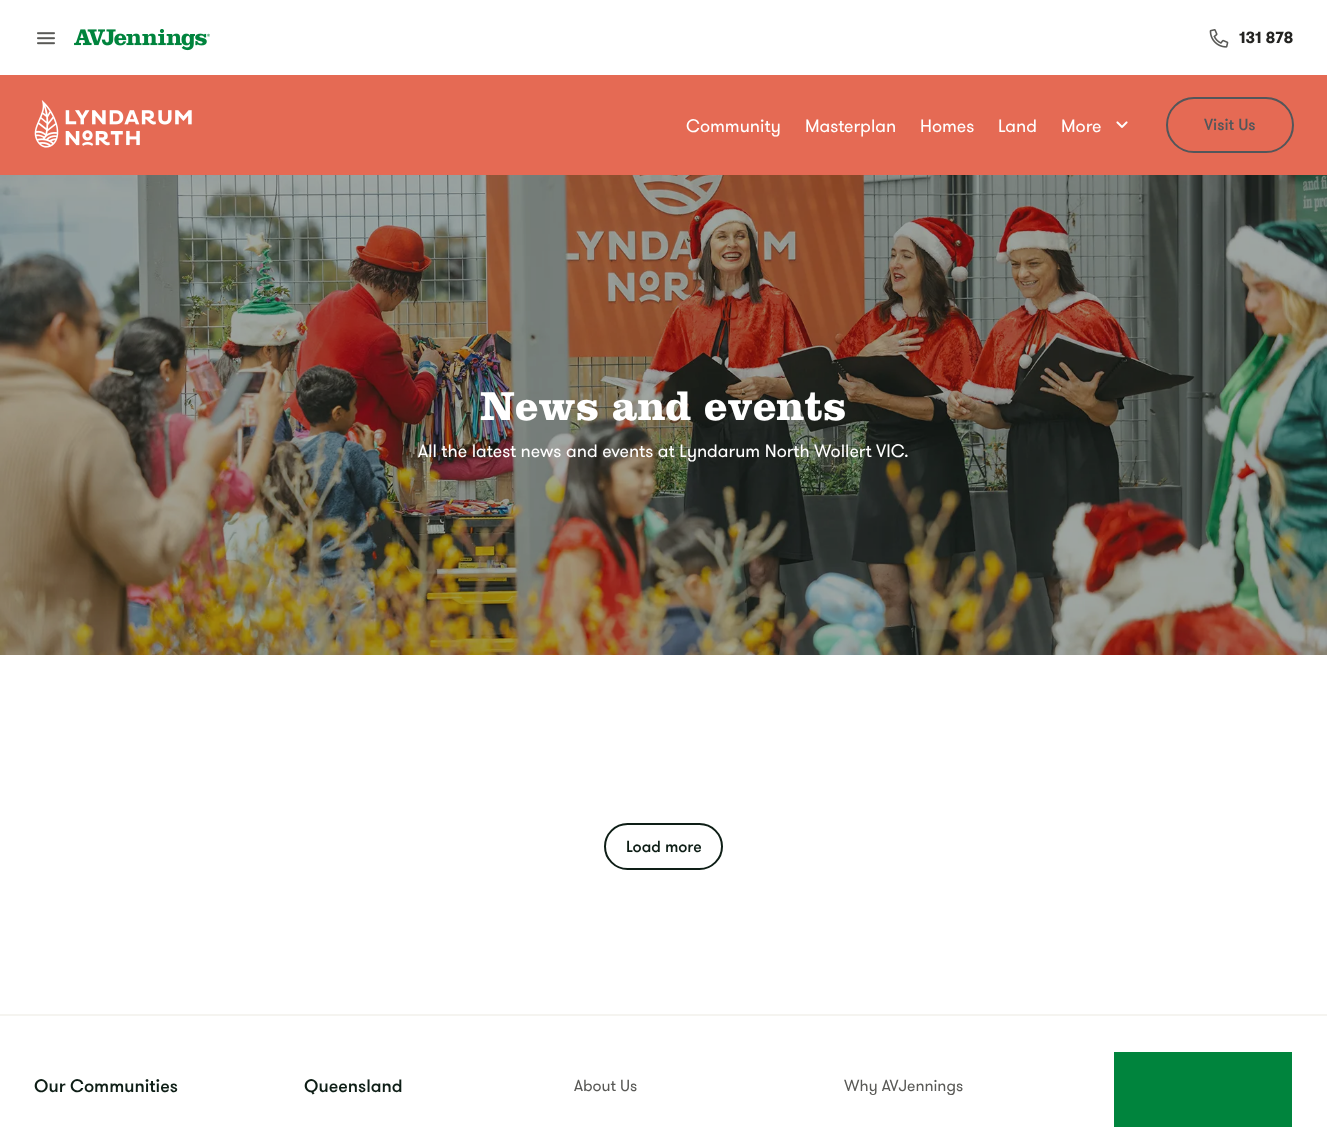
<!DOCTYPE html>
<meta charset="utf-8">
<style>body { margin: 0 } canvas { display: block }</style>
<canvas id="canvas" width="1327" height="1127"></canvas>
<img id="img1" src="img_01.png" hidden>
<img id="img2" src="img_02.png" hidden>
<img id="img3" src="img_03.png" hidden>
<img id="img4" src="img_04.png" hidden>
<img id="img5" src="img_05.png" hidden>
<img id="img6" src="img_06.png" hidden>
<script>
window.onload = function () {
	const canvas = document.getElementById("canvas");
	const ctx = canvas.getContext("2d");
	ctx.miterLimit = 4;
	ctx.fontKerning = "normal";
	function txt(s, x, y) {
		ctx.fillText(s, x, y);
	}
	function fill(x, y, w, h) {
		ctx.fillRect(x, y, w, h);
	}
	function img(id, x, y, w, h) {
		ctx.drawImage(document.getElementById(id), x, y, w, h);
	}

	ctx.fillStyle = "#FFFFFF";
	fill(0, 0, 1327, 1127);
	img("img1", 37, 32, 18, 13);
	img("img2", 74, 29, 136, 22);
	img("img3", 1209, 29, 20, 19);
	ctx.fillStyle = "#E56A54";
	fill(0, 75, 1327, 100);
	img("img4", 34, 100, 158, 48);
	img("img5", 1116, 121, 12, 7);
	ctx.beginPath();
	ctx.roundRect(1167, 98, 126, 54, 27);
	ctx.strokeStyle = "#53565A";
	ctx.lineWidth = 2;
	ctx.stroke();
	img("img6", 0, 175, 1327, 480);
	ctx.beginPath();
	ctx.roundRect(605, 824, 117, 45, 22.5);
	ctx.strokeStyle = "#0E1E16";
	ctx.stroke();
	ctx.fillStyle = "#F5F4F0";
	fill(0, 1014, 1327, 2);
	ctx.fillStyle = "#00843D";
	fill(1114, 1052, 178, 75);
	ctx.font = "bold 16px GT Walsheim";
	ctx.fillStyle = "#242422";
	txt("131 878", 1239, 43);
	ctx.font = "18px GT Walsheim";
	ctx.fillStyle = "#FFFFFF";
	txt("Community", 686, 132);
	txt("Masterplan", 805, 132);
	txt("Homes", 920, 132);
	txt("Land", 998, 132);
	txt("More", 1061, 132);
	ctx.font = "500 16px GT Walsheim";
	ctx.fillStyle = "#53565A";
	txt("Visit Us", 1204, 130);
	ctx.font = "bold 42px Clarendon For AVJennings";
	ctx.fillStyle = "#FFFFFF";
	txt("News and events", 480, 420);
	ctx.font = "18px GT Walsheim";
	txt("All the latest news and events at Lyndarum North Wollert VIC.", 418, 457);
	ctx.font = "500 16px GT Walsheim";
	ctx.fillStyle = "#0E1E16";
	txt("Load more", 626, 852);
	ctx.font = "500 18px GT Walsheim";
	txt("Our Communities", 34, 1092);
	txt("Queensland", 304, 1092);
	ctx.font = "16px GT Walsheim";
	ctx.fillStyle = "#595956";
	txt("About Us", 574, 1091);
	txt("Why AVJennings", 844, 1091);
};
</script>
